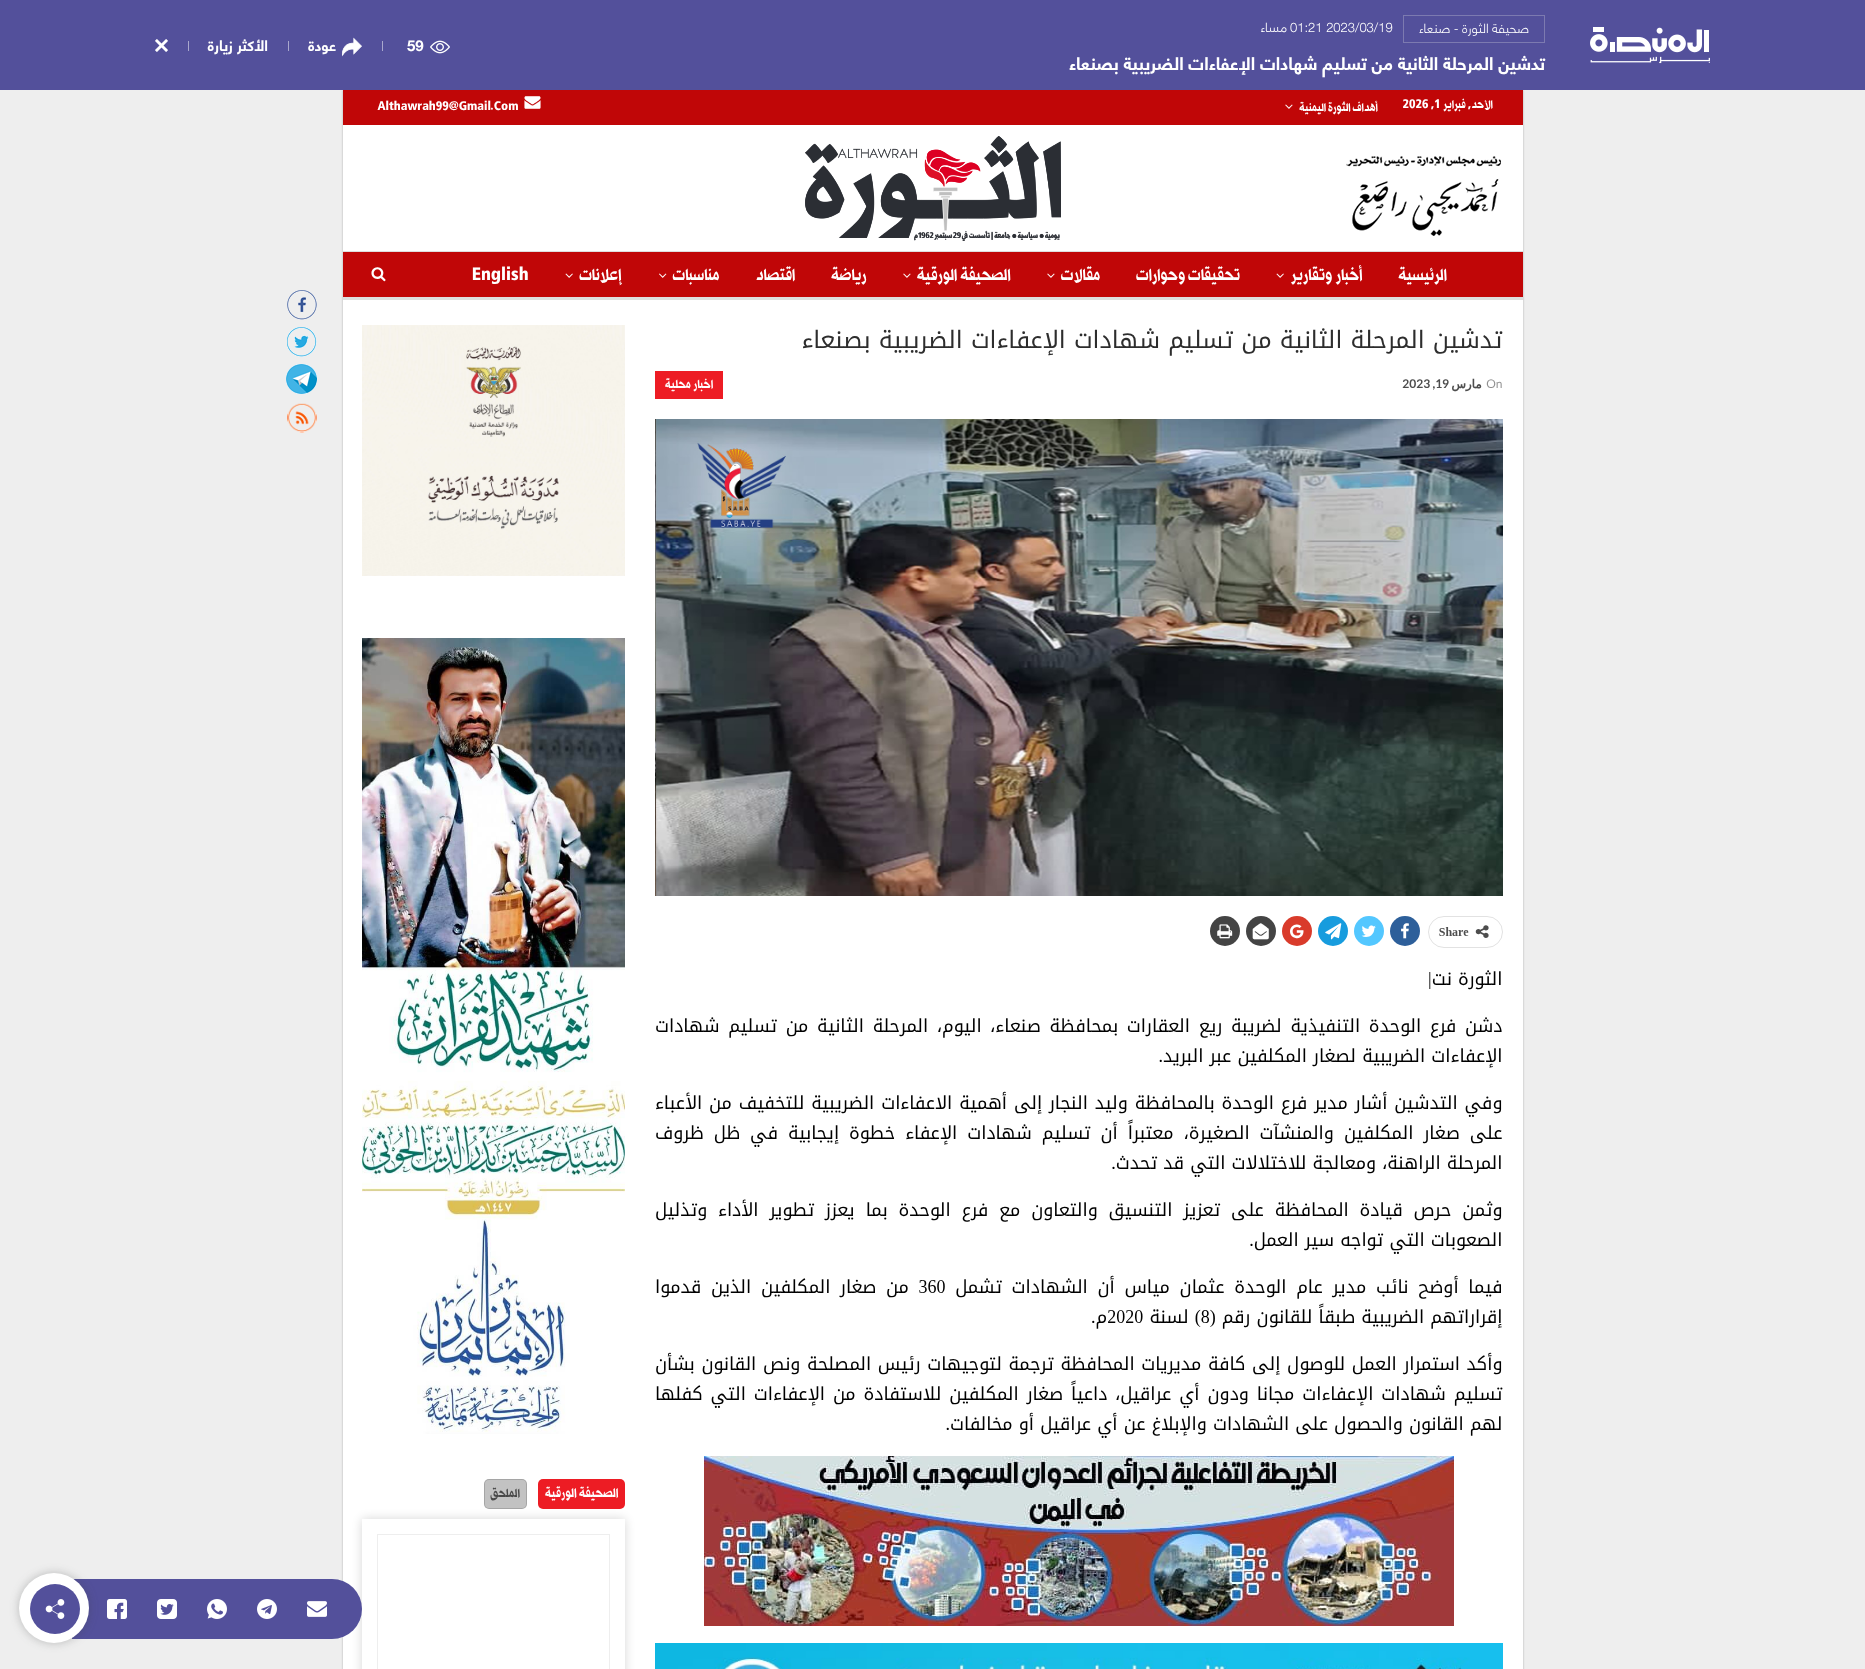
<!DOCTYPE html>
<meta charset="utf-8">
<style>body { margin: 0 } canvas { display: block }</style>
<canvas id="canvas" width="1865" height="1669"></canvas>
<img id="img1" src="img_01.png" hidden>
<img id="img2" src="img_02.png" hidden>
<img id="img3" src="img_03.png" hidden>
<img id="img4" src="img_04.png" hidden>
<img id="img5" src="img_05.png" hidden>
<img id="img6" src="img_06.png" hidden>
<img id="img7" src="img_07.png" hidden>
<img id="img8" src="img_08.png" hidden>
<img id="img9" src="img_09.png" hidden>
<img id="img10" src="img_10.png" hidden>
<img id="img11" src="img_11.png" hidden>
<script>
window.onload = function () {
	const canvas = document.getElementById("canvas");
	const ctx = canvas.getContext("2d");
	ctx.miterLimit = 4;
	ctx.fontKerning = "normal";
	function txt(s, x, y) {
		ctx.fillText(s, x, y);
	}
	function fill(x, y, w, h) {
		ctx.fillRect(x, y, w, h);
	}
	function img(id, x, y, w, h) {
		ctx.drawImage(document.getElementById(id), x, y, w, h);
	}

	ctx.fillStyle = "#53509B";
	fill(0, 0, 1865, 1669);
	img("img1", 1590, 27, 120, 37);
	ctx.strokeStyle = "#7C7AB0";
	ctx.strokeRect(1403.5, 15.5, 141, 27);
	img("img2", 430, 40, 20, 14);
	ctx.fillStyle = "#A9A8CD";
	fill(382, 41, 1, 10);
	img("img3", 342, 37, 20, 20);
	fill(288, 41, 1, 10);
	fill(188, 41, 1, 10);
	img("img4", 155, 39, 13, 13);
	img("img5", 0, 90, 1865, 1579);
	ctx.fillStyle = "#53509B";
	ctx.beginPath();
	ctx.roundRect(72, 1579, 290, 60, [0, 30, 30, 0]);
	ctx.fill();
	ctx.fillStyle = "rgba(60, 63, 64, 0.3)";
	ctx.filter = "blur(5px)";
	ctx.beginPath();
	ctx.roundRect(19, 1573, 70, 70, 35);
	ctx.fill();
	ctx.filter = "none";
	ctx.fillStyle = "#FFFFFF";
	ctx.beginPath();
	ctx.arc(54, 1608, 35, 0, Math.PI * 2);
	ctx.fill();
	img("img6", 307, 1601, 20, 16);
	img("img7", 257, 1599, 20, 20);
	img("img8", 207, 1599, 20, 20);
	img("img9", 157, 1599, 20, 20);
	img("img10", 107, 1599, 20, 20);
	ctx.fillStyle = "#53509B";
	ctx.beginPath();
	ctx.arc(55, 1609, 25, 0, Math.PI * 2);
	ctx.fill();
	img("img11", 45, 1599, 20, 20);
	ctx.direction = "rtl";
	ctx.font = "300 13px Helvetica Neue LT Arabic";
	ctx.fillStyle = "#FFFFFF";
	txt("صحيفة الثورة - صنعاء", 1529, 33);
	ctx.direction = "ltr";
	txt("01:21 2023/03/19", 1290, 32);
	ctx.direction = "rtl";
	txt("مساء", 1287, 32);
	ctx.font = "bold 18px Helvetica Neue LT Arabic";
	txt("تدشين المرحلة الثانية من تسليم شهادات الإعفاءات الضريبية بصنعاء", 1545, 70);
	ctx.direction = "ltr";
	ctx.font = "bold 15px Helvetica Neue LT Arabic";
	txt("59", 407, 51);
	ctx.direction = "rtl";
	txt("عودة", 336, 51);
	txt("الأكثر زيارة", 268, 51);
};
</script>
